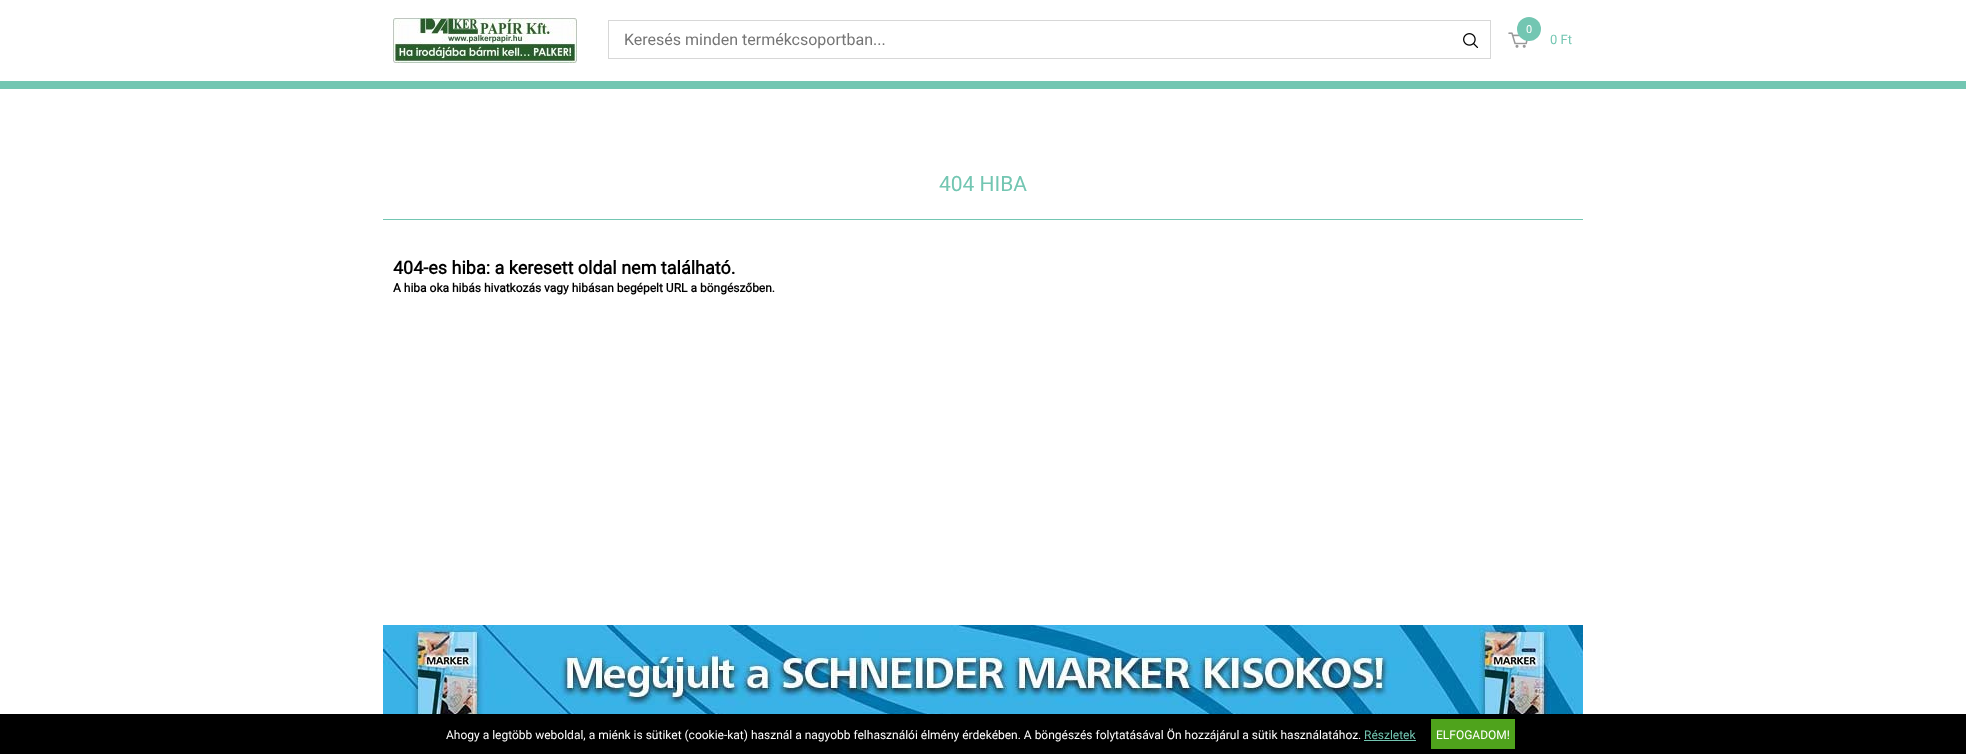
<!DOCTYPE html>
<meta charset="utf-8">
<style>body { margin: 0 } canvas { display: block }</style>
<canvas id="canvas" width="1966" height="754"></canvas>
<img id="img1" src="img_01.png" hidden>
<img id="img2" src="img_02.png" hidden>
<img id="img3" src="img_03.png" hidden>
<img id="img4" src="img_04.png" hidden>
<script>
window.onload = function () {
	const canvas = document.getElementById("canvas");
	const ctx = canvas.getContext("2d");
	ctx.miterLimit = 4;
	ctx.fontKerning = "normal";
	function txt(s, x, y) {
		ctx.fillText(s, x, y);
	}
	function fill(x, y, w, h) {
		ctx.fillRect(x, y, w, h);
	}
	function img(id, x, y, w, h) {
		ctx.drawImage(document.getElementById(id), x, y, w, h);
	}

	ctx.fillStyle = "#FFFFFF";
	fill(0, 0, 1966, 754);
	ctx.fillStyle = "#73C6B2";
	fill(0, 81, 1966, 8);
	img("img1", 393, 18, 184, 45);
	ctx.strokeStyle = "#D7D7D7";
	ctx.strokeRect(608.5, 20.5, 882, 38);
	img("img2", 1463, 33, 16, 15);
	img("img3", 1508, 32, 20, 16);
	ctx.beginPath();
	ctx.arc(1529, 29, 12, 0, Math.PI * 2);
	ctx.fill();
	fill(383, 219, 1200, 1);
	img("img4", 383, 625, 1200, 89);
	ctx.fillStyle = "#000000";
	fill(0, 714, 1966, 40);
	ctx.fillStyle = "#73C6B2";
	fill(1364, 740, 52, 1);
	ctx.fillStyle = "#4FA31C";
	fill(1431, 719, 84, 30);
	ctx.font = "16px Roboto";
	ctx.fillStyle = "#757575";
	txt("Keresés minden termékcsoportban...", 624, 45);
	ctx.font = "11px Roboto";
	ctx.fillStyle = "#FFFFFF";
	txt("0", 1526, 33);
	ctx.font = "13px Roboto";
	ctx.fillStyle = "#73C6B2";
	txt("0 Ft", 1550, 44);
	ctx.font = "21px Roboto";
	txt("404 HIBA", 939, 191);
	ctx.font = "bold 18px Roboto";
	ctx.fillStyle = "#000000";
	txt("404-es hiba: a keresett oldal nem található.", 393, 274);
	ctx.font = "bold 12px Roboto";
	txt("A hiba oka hibás hivatkozás vagy hibásan begépelt URL a böngészőben.", 393, 292);
	ctx.font = "12px Roboto";
	ctx.fillStyle = "#FFFFFF";
	txt("Ahogy a legtöbb weboldal, a miénk is sütiket (cookie-kat) használ a nagyobb felhasználói élmény érdekében. A böngészés folytatásával Ön hozzájárul a sütik használatához.", 446, 739);
	ctx.fillStyle = "#73C6B2";
	txt("Részletek", 1364, 739);
	ctx.fillStyle = "#FFFFFF";
	txt("ELFOGADOM!", 1436, 739);
};
</script>
